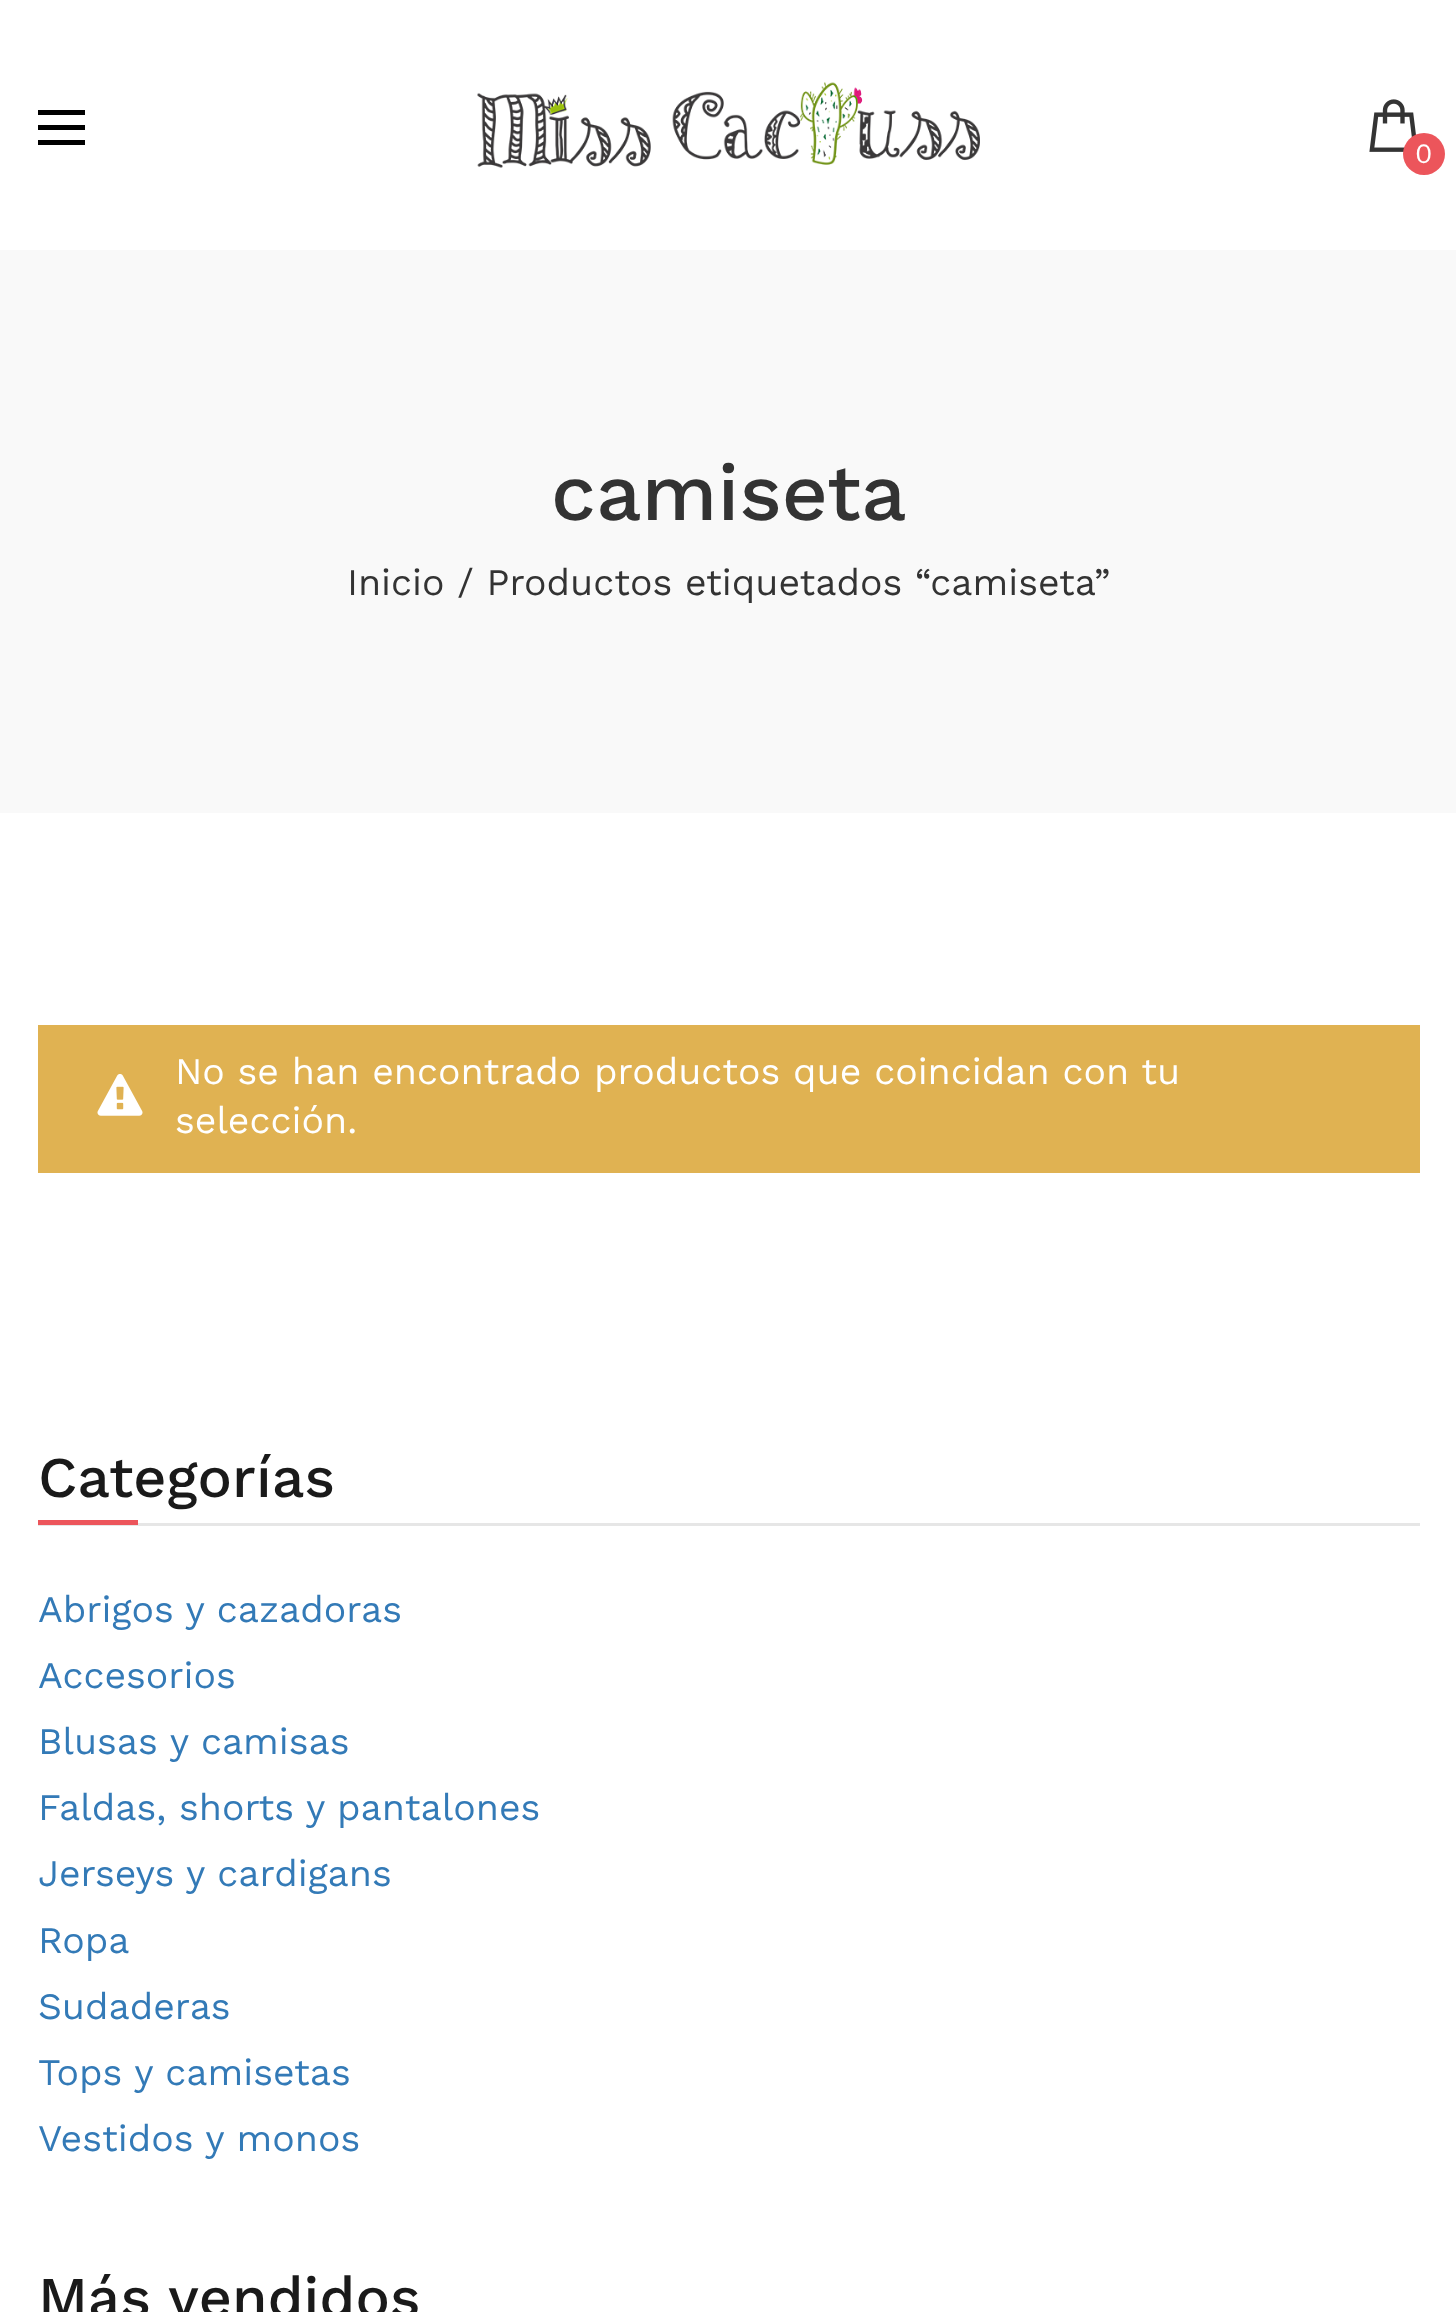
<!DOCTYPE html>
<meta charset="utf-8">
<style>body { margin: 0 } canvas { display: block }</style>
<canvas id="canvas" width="1456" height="2312"></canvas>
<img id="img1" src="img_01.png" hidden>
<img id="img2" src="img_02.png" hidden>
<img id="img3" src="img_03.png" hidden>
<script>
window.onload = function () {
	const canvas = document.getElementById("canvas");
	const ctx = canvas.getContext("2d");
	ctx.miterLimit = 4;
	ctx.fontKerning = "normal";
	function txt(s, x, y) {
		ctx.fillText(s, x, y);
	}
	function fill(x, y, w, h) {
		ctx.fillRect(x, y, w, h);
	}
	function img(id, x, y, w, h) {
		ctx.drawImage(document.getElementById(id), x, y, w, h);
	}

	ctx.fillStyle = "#FFFFFF";
	fill(0, 0, 1456, 2312);
	ctx.fillStyle = "#000000";
	fill(38, 125, 47, 5);
	fill(38, 110, 47, 5);
	fill(38, 140, 47, 5);
	img("img1", 477, 82, 503, 86);
	img("img2", 1369, 99, 47, 53);
	ctx.fillStyle = "#EC555B";
	ctx.beginPath();
	ctx.arc(1424, 154, 21, 0, Math.PI * 2);
	ctx.fill();
	ctx.fillStyle = "#F9F9F9";
	fill(0, 250, 1456, 563);
	ctx.fillStyle = "#E0B252";
	fill(38, 1025, 1382, 148);
	img("img3", 97, 1074, 46, 42);
	ctx.fillStyle = "#E6E6E6";
	fill(38, 1523, 1382, 3);
	ctx.fillStyle = "#EC555B";
	fill(38, 1520, 100, 5);
	ctx.font = "28px Work Sans";
	ctx.fillStyle = "#FFFFFF";
	txt("0", 1415, 163);
	ctx.font = "500 80px Work Sans";
	ctx.fillStyle = "#333333";
	txt("camiseta", 551, 520);
	ctx.font = "37.5px Work Sans";
	txt("Inicio / Productos etiquetados “camiseta”", 347, 595);
	ctx.fillStyle = "#FFFFFF";
	txt("No se han encontrado productos que coincidan con tu", 175, 1084);
	txt("selección.", 175, 1133);
	ctx.font = "500 57.5px Work Sans";
	ctx.fillStyle = "#1A1A1A";
	txt("Categorías", 38, 1497);
	ctx.font = "37.5px Work Sans";
	ctx.fillStyle = "#337AB7";
	txt("Abrigos y cazadoras", 38, 1622);
	txt("Accesorios", 38, 1688);
	txt("Blusas y camisas", 38, 1754);
	txt("Faldas, shorts y pantalones", 38, 1820);
	txt("Jerseys y cardigans", 38, 1886);
	txt("Ropa", 38, 1953);
	txt("Sudaderas", 38, 2019);
	txt("Tops y camisetas", 38, 2085);
	txt("Vestidos y monos", 38, 2151);
	ctx.font = "500 57.5px Work Sans";
	ctx.fillStyle = "#1A1A1A";
	txt("Más vendidos", 38, 2317);
};
</script>
